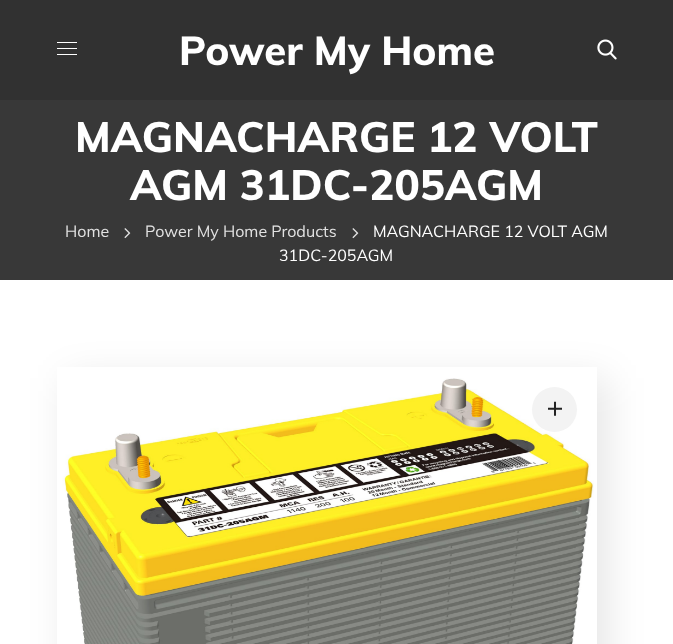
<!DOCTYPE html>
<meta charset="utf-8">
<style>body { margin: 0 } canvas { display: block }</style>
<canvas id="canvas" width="673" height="644"></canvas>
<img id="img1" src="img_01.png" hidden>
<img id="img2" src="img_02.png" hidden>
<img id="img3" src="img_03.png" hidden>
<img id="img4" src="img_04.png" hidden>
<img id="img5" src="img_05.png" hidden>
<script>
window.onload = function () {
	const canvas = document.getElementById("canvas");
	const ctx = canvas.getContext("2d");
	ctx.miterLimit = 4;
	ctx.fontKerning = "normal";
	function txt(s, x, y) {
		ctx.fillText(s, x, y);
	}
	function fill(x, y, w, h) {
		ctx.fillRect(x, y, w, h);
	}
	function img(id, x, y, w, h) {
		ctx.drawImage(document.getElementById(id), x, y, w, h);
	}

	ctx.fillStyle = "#FFFFFF";
	fill(0, 0, 673, 644);
	ctx.fillStyle = "#313131";
	fill(0, 0, 673, 100);
	ctx.fillStyle = "#FFFFFF";
	fill(57, 42, 20, 1);
	fill(57, 48, 20, 1);
	fill(57, 54, 20, 1);
	img("img1", 597, 39, 20, 21);
	ctx.fillStyle = "#383838";
	fill(0, 100, 673, 180);
	img("img2", 124, 228, 7, 11);
	img("img3", 352, 228, 7, 11);
	ctx.save();
	ctx.beginPath();
	ctx.moveTo(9, 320);
	ctx.lineTo(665, 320);
	ctx.lineTo(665, 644);
	ctx.lineTo(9, 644);
	ctx.closePath();
	ctx.moveTo(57, 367);
	ctx.lineTo(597, 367);
	ctx.lineTo(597, 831);
	ctx.lineTo(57, 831);
	ctx.closePath();
	ctx.clip("evenodd");
	ctx.fillStyle = "rgba(0, 0, 0, 0.1)";
	ctx.filter = "blur(19px)";
	ctx.beginPath();
	ctx.rect(67, 378, 540, 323);
	ctx.fill();
	ctx.filter = "none";
	ctx.restore();
	img("img4", 62, 378, 532, 266);
	ctx.fillStyle = "#F3F3F3";
	ctx.beginPath();
	ctx.arc(554.5, 409.5, 22.5, 0, Math.PI * 2);
	ctx.fill();
	img("img5", 548, 401, 14, 15);
	ctx.font = "800 40px Muli";
	ctx.fillStyle = "#FFFFFF";
	txt("Power My Home", 179, 65);
	ctx.font = "800 42px Muli";
	txt("MAGNACHARGE 12 VOLT", 75, 152);
	txt("AGM 31DC-205AGM", 130, 200);
	ctx.font = "16px Muli";
	ctx.fillStyle = "#E2E2E2";
	txt("Home", 65, 237);
	txt("Power My Home Products", 145, 237);
	ctx.fillStyle = "#FFFFFF";
	txt("MAGNACHARGE 12 VOLT AGM", 373, 237);
	txt("31DC-205AGM", 279, 261);
};
</script>
